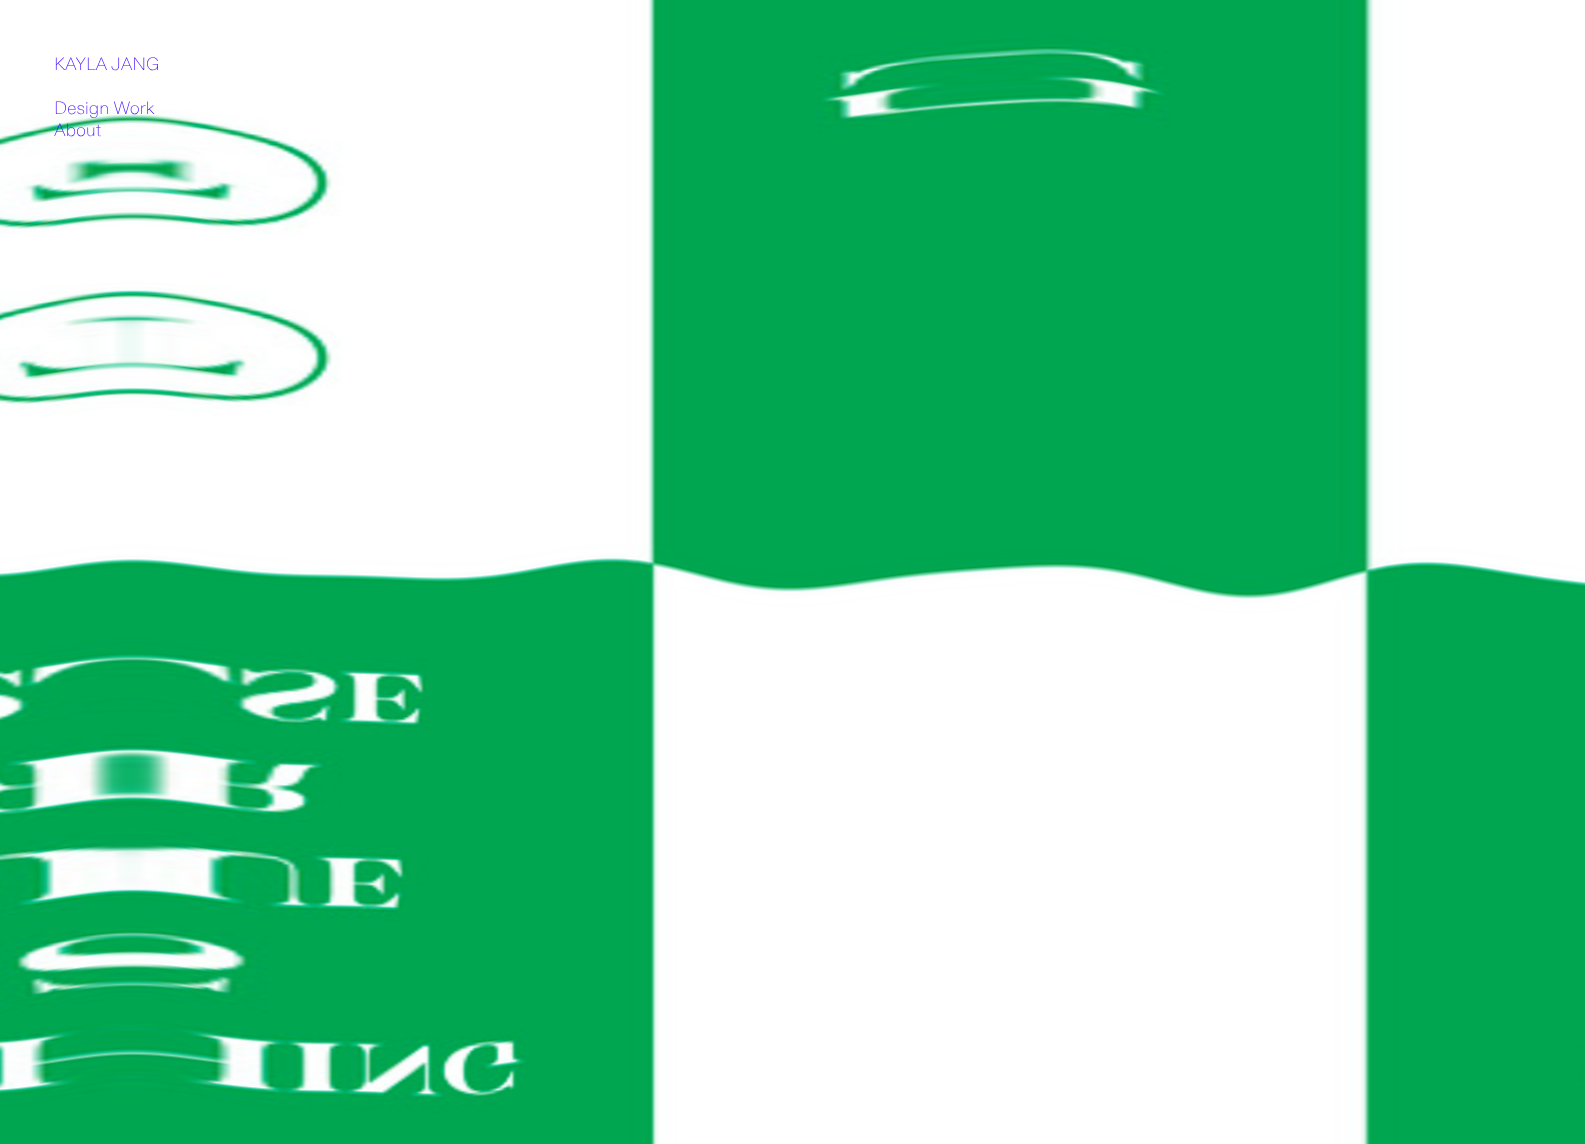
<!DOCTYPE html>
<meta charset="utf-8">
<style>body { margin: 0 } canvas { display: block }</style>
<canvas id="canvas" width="1585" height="1144"></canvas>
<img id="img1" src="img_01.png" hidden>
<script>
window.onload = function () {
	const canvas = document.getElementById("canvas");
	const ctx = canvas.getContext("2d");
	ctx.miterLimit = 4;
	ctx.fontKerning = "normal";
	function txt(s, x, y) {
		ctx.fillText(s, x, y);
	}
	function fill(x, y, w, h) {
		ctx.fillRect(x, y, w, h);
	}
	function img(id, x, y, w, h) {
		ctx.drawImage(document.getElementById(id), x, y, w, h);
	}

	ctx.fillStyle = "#FFFFFF";
	fill(0, 0, 1585, 1144);
	img("img1", 0, 0, 1585, 1144);
	ctx.font = "100 18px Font";
	ctx.fillStyle = "#3F00FD";
	txt("KAYLA JANG", 54, 70);
	txt("Design Work", 54, 114);
	txt("About", 54, 136);
};
</script>
